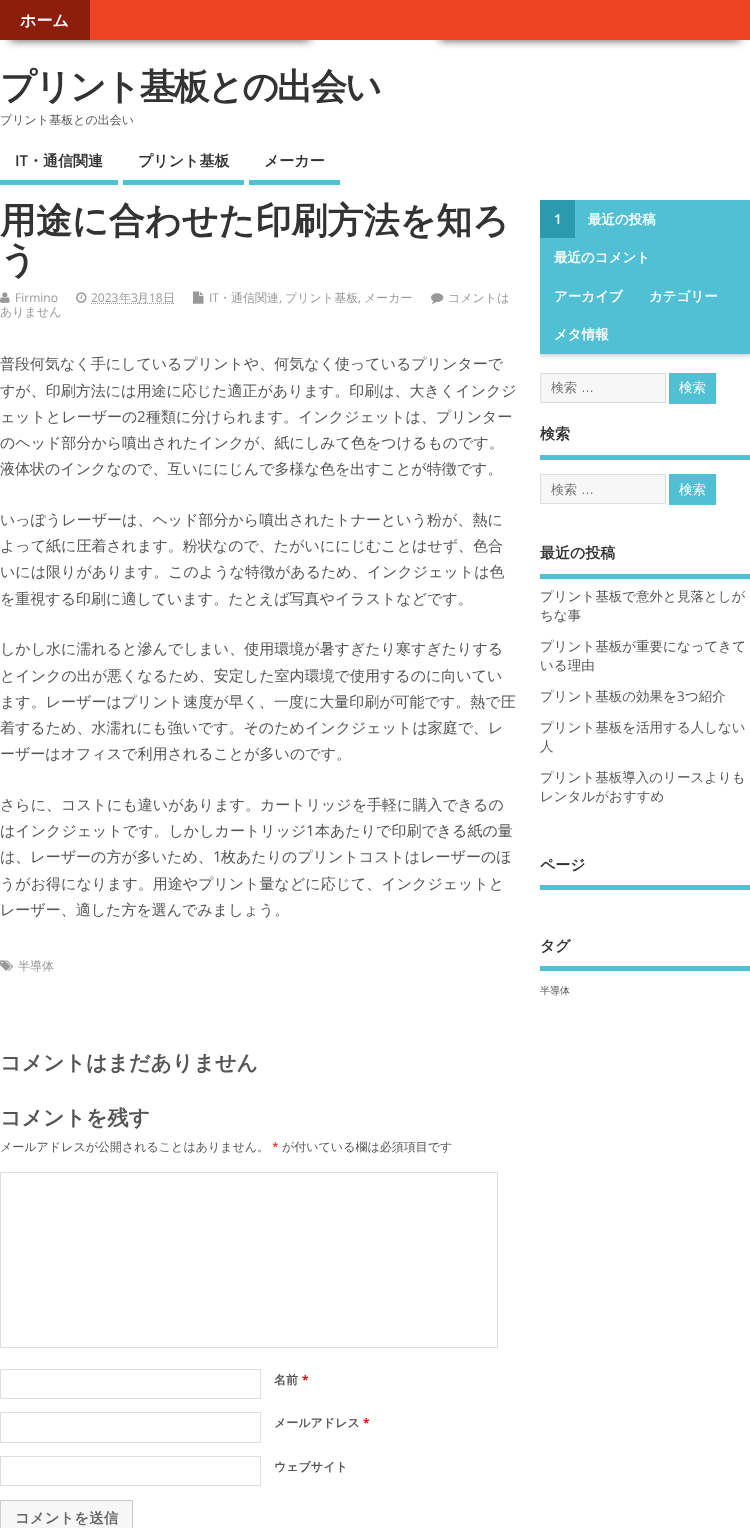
<!DOCTYPE html>
<meta charset="utf-8">
<style>body { margin: 0 } canvas { display: block }</style>
<canvas id="canvas" width="750" height="1528"></canvas>
<img id="img1" src="img_01.png" hidden>
<img id="img2" src="img_02.png" hidden>
<img id="img3" src="img_03.png" hidden>
<img id="img4" src="img_04.png" hidden>
<img id="img5" src="img_05.png" hidden>
<script>
window.onload = function () {
	const canvas = document.getElementById("canvas");
	const ctx = canvas.getContext("2d");
	ctx.miterLimit = 4;
	ctx.fontKerning = "normal";
	function txt(s, x, y) {
		ctx.fillText(s, x, y);
	}
	function fill(x, y, w, h) {
		ctx.fillRect(x, y, w, h);
	}
	function img(id, x, y, w, h) {
		ctx.drawImage(document.getElementById(id), x, y, w, h);
	}

	ctx.fillStyle = "#FFFFFF";
	fill(0, 0, 750, 1528);
	ctx.fillStyle = "rgba(0, 0, 0, 0.75)";
	ctx.filter = "blur(5px)";
	ctx.beginPath();
	ctx.rect(10, 32, 300, 8);
	ctx.fill();
	ctx.filter = "none";
	ctx.filter = "blur(5px)";
	ctx.beginPath();
	ctx.rect(440, 32, 300, 8);
	ctx.fill();
	ctx.filter = "none";
	ctx.fillStyle = "#EF4423";
	fill(90, 0, 660, 40);
	ctx.fillStyle = "#8E1E0C";
	fill(0, 0, 90, 40);
	ctx.fillStyle = "#52C0D4";
	fill(0, 180, 118, 5);
	fill(123, 180, 121, 5);
	fill(249, 180, 91, 5);
	img("img1", 76, 292, 11, 11);
	ctx.beginPath();
	ctx.moveTo(91, 303.5);
	ctx.lineTo(175, 303.5);
	ctx.strokeStyle = "#999999";
	ctx.setLineDash([1, 1]);
	ctx.stroke();
	img("img2", 193, 291, 11, 13);
	img("img3", 431, 293, 13, 11);
	img("img4", 0, 292, 10, 11);
	img("img5", 0, 960, 13, 11);
	ctx.strokeStyle = "#DDDDDD";
	ctx.setLineDash([]);
	ctx.strokeRect(0.5, 1172.5, 497, 175);
	ctx.strokeRect(0.5, 1369.5, 260, 29);
	ctx.strokeRect(0.5, 1412.5, 260, 30);
	ctx.strokeRect(0.5, 1456.5, 260, 29);
	ctx.fillStyle = "#F7F7F7";
	ctx.beginPath();
	ctx.rect(0.5, 1500.5, 132, 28);
	ctx.fill();
	ctx.strokeStyle = "#CCCCCC";
	ctx.stroke();
	ctx.save();
	ctx.beginPath();
	ctx.rect(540, 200, 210, 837);
	ctx.clip();
	ctx.fillStyle = "#CCCCCC";
	ctx.filter = "blur(2px)";
	ctx.beginPath();
	ctx.rect(540, 202, 210, 154);
	ctx.fill();
	ctx.filter = "none";
	ctx.restore();
	ctx.fillStyle = "#52C0D4";
	fill(540, 200, 210, 154);
	ctx.fillStyle = "#2B9AAE";
	fill(540, 200, 35, 38);
	ctx.fillStyle = "#F7F7F7";
	ctx.beginPath();
	ctx.rect(540.5, 373.5, 125, 29);
	ctx.fill();
	ctx.strokeStyle = "#DDDDDD";
	ctx.stroke();
	ctx.fillStyle = "#52C0D4";
	fill(669, 373, 47, 31);
	fill(540, 455, 210, 5);
	ctx.fillStyle = "#F7F7F7";
	ctx.beginPath();
	ctx.rect(540.5, 474.5, 125, 29);
	ctx.fill();
	ctx.stroke();
	ctx.fillStyle = "#52C0D4";
	fill(669, 474, 47, 31);
	fill(540, 574, 210, 5);
	fill(540, 885, 210, 5);
	fill(540, 966, 210, 5);
	ctx.font = "bold 16px WenQuanYi Zen Hei";
	ctx.fillStyle = "#FFFFFF";
	txt("ホーム", 20, 26);
	ctx.letterSpacing = "-2px";
	ctx.font = "bold 36px WenQuanYi Zen Hei";
	ctx.fillStyle = "#333333";
	txt("プリント基板との出会い", 0, 99);
	ctx.letterSpacing = "0px";
	ctx.font = "500 12px WenQuanYi Zen Hei";
	ctx.fillStyle = "#555555";
	txt("プリント基板との出会い", 0, 124);
	ctx.font = "600 15px Open Sans";
	ctx.fillStyle = "#333333";
	txt("IT", 15, 166);
	ctx.font = "bold 15px WenQuanYi Zen Hei";
	txt("・通信関連", 28, 166);
	txt("プリント基板", 138, 166);
	txt("メーカー", 264, 166);
	ctx.font = "bold 36px WenQuanYi Zen Hei";
	txt("用途に合わせた印刷方法を知ろ", 0, 233);
	txt("う", 0, 272);
	ctx.font = "12px Open Sans";
	ctx.fillStyle = "#999999";
	txt("2023", 91, 302);
	ctx.font = "500 12px WenQuanYi Zen Hei";
	txt("年", 119, 302);
	ctx.font = "12px Open Sans";
	txt("3", 131, 302);
	ctx.font = "500 12px WenQuanYi Zen Hei";
	txt("月", 137, 302);
	ctx.font = "12px Open Sans";
	txt("18", 149, 302);
	ctx.font = "500 12px WenQuanYi Zen Hei";
	txt("日", 163, 302);
	ctx.font = "12px Open Sans";
	txt("IT", 209, 302);
	ctx.font = "500 12px WenQuanYi Zen Hei";
	txt("・通信関連", 219, 302);
	ctx.font = "12px Open Sans";
	txt(",", 279, 302);
	ctx.font = "500 12px WenQuanYi Zen Hei";
	txt("プリント基板", 285, 302);
	ctx.font = "12px Open Sans";
	txt(",", 358, 302);
	ctx.font = "500 12px WenQuanYi Zen Hei";
	txt("メーカー", 364, 302);
	txt("コメントは", 448, 302);
	txt("ありません", 0, 316);
	ctx.font = "12px Open Sans";
	txt("Firmino", 15, 302);
	ctx.font = "500 15px WenQuanYi Zen Hei";
	ctx.fillStyle = "#555555";
	txt("普段何気なく手にしているプリントや、何気なく使っているプリンターで", 0, 369);
	txt("すが、印刷方法には用途に応じた適正があります。印刷は、大きくインクジ", 0, 396);
	txt("ェットとレーザーの", 0, 422);
	ctx.font = "15px Open Sans";
	txt("2", 137, 422);
	ctx.font = "500 15px WenQuanYi Zen Hei";
	txt("種類に分けられます。インクジェットは、プリンター", 146, 422);
	txt("のヘッド部分から噴出されたインクが、紙にしみて色をつけるものです。", 0, 448);
	txt("液体状のインクなので、互いににじんで多様な色を出すことが特徴です。", 0, 474);
	txt("いっぽうレーザーは、ヘッド部分から噴出されたトナーという粉が、熱に", 0, 525);
	txt("よって紙に圧着されます。粉状なので、たがいににじむことはせず、色合", 0, 551);
	txt("いには限りがあります。このような特徴があるため、インクジェットは色", 0, 577);
	txt("を重視する印刷に適しています。たとえば写真やイラストなどです。", 0, 604);
	txt("しかし水に濡れると滲んでしまい、使用環境が暑すぎたり寒すぎたりする", 0, 654);
	txt("とインクの出が悪くなるため、安定した室内環境で使用するのに向いてい", 0, 681);
	txt("ます。レーザーはプリント速度が早く、一度に大量印刷が可能です。熱で圧", 0, 707);
	txt("着するため、水濡れにも強いです。そのためインクジェットは家庭で、レ", 0, 733);
	txt("ーザーはオフィスで利用されることが多いのです。", 0, 759);
	txt("さらに、コストにも違いがあります。カートリッジを手軽に購入できるの", 0, 810);
	txt("はインクジェットです。しかしカートリッジ", 0, 836);
	ctx.font = "15px Open Sans";
	txt("1", 306, 836);
	ctx.font = "500 15px WenQuanYi Zen Hei";
	txt("本あたりで印刷できる紙の量", 315, 836);
	txt("は、レーザーの方が多いため、", 0, 862);
	ctx.font = "15px Open Sans";
	txt("1", 213, 862);
	ctx.font = "500 15px WenQuanYi Zen Hei";
	txt("枚あたりのプリントコストはレーザーのほ", 221, 862);
	txt("うがお得になります。用途やプリント量などに応じて、インクジェットと", 0, 889);
	txt("レーザー、適した方を選んでみましょう。", 0, 915);
	ctx.font = "500 12px WenQuanYi Zen Hei";
	ctx.fillStyle = "#999999";
	txt("半導体", 18, 970);
	ctx.font = "bold 21px WenQuanYi Zen Hei";
	ctx.fillStyle = "#555555";
	txt("コメントはまだありません", 0, 1070);
	txt("コメントを残す", 0, 1125);
	ctx.font = "500 12px WenQuanYi Zen Hei";
	txt("メールアドレスが公開されることはありません。", 0, 1151);
	ctx.font = "12px Open Sans";
	ctx.fillStyle = "#D61111";
	txt("*", 272, 1151);
	ctx.font = "500 12px WenQuanYi Zen Hei";
	ctx.fillStyle = "#555555";
	txt("が付いている欄は必須項目です", 282, 1151);
	ctx.font = "bold 12px WenQuanYi Zen Hei";
	txt("名前", 274, 1384);
	ctx.font = "bold 12px Open Sans";
	ctx.fillStyle = "#D61111";
	txt("*", 302, 1384);
	ctx.font = "bold 12px WenQuanYi Zen Hei";
	ctx.fillStyle = "#555555";
	txt("メールアドレス", 274, 1427);
	ctx.font = "bold 12px Open Sans";
	ctx.fillStyle = "#D61111";
	txt("*", 363, 1427);
	ctx.font = "bold 12px WenQuanYi Zen Hei";
	ctx.fillStyle = "#555555";
	txt("ウェブサイト", 274, 1471);
	ctx.font = "bold 14.5px WenQuanYi Zen Hei";
	ctx.fillStyle = "#666666";
	txt("コメントを送信", 15, 1523);
	ctx.font = "600 13.5px Open Sans";
	ctx.fillStyle = "#FFFFFF";
	txt("1", 554, 224);
	ctx.font = "bold 13.5px WenQuanYi Zen Hei";
	txt("最近の投稿", 588, 224);
	txt("最近のコメント", 554, 262);
	txt("アーカイブ", 554, 301);
	txt("カテゴリー", 649, 301);
	txt("メタ情報", 554, 339);
	ctx.font = "500 13px WenQuanYi Zen Hei";
	ctx.fillStyle = "#757575";
	txt("検索", 551, 392);
	ctx.font = "13px Liberation Sans";
	txt("…", 581, 392);
	ctx.font = "500 13.5px WenQuanYi Zen Hei";
	ctx.fillStyle = "#FFFFFF";
	txt("検索", 679, 392);
	ctx.font = "bold 15px WenQuanYi Zen Hei";
	ctx.fillStyle = "#333333";
	txt("検索", 540, 439);
	ctx.font = "500 13px WenQuanYi Zen Hei";
	ctx.fillStyle = "#757575";
	txt("検索", 551, 494);
	ctx.font = "13px Liberation Sans";
	txt("…", 581, 494);
	ctx.font = "500 13.5px WenQuanYi Zen Hei";
	ctx.fillStyle = "#FFFFFF";
	txt("検索", 679, 494);
	ctx.font = "bold 15px WenQuanYi Zen Hei";
	ctx.fillStyle = "#333333";
	txt("最近の投稿", 540, 558);
	ctx.font = "500 13.5px WenQuanYi Zen Hei";
	ctx.fillStyle = "#555555";
	txt("プリント基板で意外と見落としが", 540, 601);
	txt("ちな事", 540, 620);
	txt("プリント基板が重要になってきて", 540, 651);
	txt("いる理由", 540, 670);
	txt("プリント基板の効果を", 540, 701);
	ctx.font = "13.5px Open Sans";
	txt("3", 677, 701);
	ctx.font = "500 13.5px WenQuanYi Zen Hei";
	txt("つ紹介", 685, 701);
	txt("プリント基板を活用する人しない", 540, 732);
	txt("人", 540, 751);
	txt("プリント基板導入のリースよりも", 540, 782);
	txt("レンタルがおすすめ", 540, 801);
	ctx.font = "bold 15px WenQuanYi Zen Hei";
	ctx.fillStyle = "#333333";
	txt("ページ", 540, 870);
	txt("タグ", 540, 951);
	ctx.font = "500 10px WenQuanYi Zen Hei";
	ctx.fillStyle = "#555555";
	txt("半導体", 540, 994);
};
</script>
